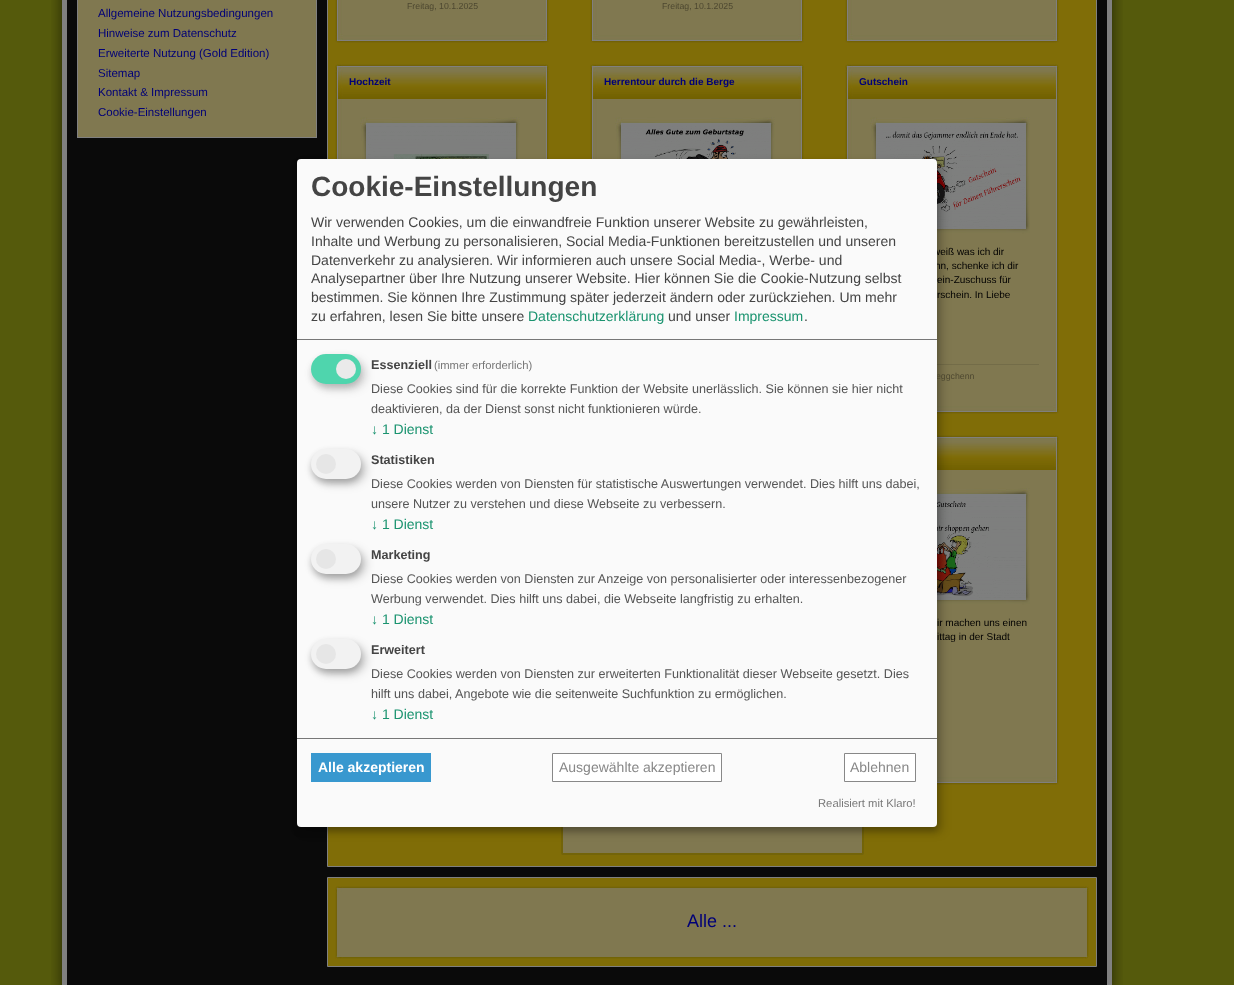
<!DOCTYPE html>
<meta charset="utf-8">
<style>body { margin: 0 } canvas { display: block }</style>
<canvas id="canvas" width="1234" height="985"></canvas>
<img id="img1" src="img_01.png" hidden>
<img id="img2" src="img_02.png" hidden>
<img id="img3" src="img_03.png" hidden>
<img id="img4" src="img_04.png" hidden>
<img id="img5" src="img_05.png" hidden>
<img id="img6" src="img_06.png" hidden>
<img id="img7" src="img_07.png" hidden>
<img id="img8" src="img_08.png" hidden>
<img id="img9" src="img_09.png" hidden>
<img id="img10" src="img_10.png" hidden>
<img id="img11" src="img_11.png" hidden>
<img id="img12" src="img_12.png" hidden>
<img id="img13" src="img_13.png" hidden>
<img id="img14" src="img_14.png" hidden>
<img id="img15" src="img_15.png" hidden>
<img id="img16" src="img_16.png" hidden>
<img id="img17" src="img_17.png" hidden>
<img id="img18" src="img_18.png" hidden>
<img id="img19" src="img_19.png" hidden>
<img id="img20" src="img_20.png" hidden>
<script>
window.onload = function () {
	const canvas = document.getElementById("canvas");
	const ctx = canvas.getContext("2d");
	ctx.miterLimit = 4;
	ctx.fontKerning = "normal";
	function txt(s, x, y) {
		ctx.fillText(s, x, y);
	}
	function fill(x, y, w, h) {
		ctx.fillRect(x, y, w, h);
	}
	function round(x, y, w, h, r) {
		ctx.beginPath();
		ctx.roundRect(x, y, w, h, r);
		ctx.fill();
	}
	function img(id, x, y, w, h) {
		ctx.drawImage(document.getElementById(id), x, y, w, h);
	}

	ctx.fillStyle = "#555A0C";
	fill(0, 0, 1234, 985);
	img("img1", 51, 0, 1072, 977);
	ctx.fillStyle = "#807850";
	fill(78, 0, 238, 137);
	ctx.fillStyle = "#808080";
	fill(316, 0, 1, 138);
	fill(77, 137, 240, 1);
	fill(77, 0, 1, 138);
	ctx.fillStyle = "#806D07";
	ctx.beginPath();
	ctx.rect(327.5, -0.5, 769, 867);
	ctx.fill();
	ctx.strokeStyle = "#808080";
	ctx.stroke();
	img("img2", 335, 0, 214, 33);
	img("img3", 335, 33, 214, 10);
	img("img2", 590, 0, 214, 33);
	img("img3", 590, 33, 214, 10);
	img("img2", 845, 0, 214, 33);
	img("img3", 845, 33, 214, 10);
	img("img4", 335, 99, 214, 60);
	img("img5", 335, 64, 214, 35);
	img("img6", 360, 117, 160, 42);
	img("img7", 366, 123, 150, 36);
	img("img4", 590, 99, 214, 60);
	img("img5", 590, 64, 214, 35);
	img("img6", 615, 117, 160, 42);
	img("img8", 621, 123, 150, 36);
	img("img9", 845, 99, 214, 305);
	img("img5", 845, 64, 214, 35);
	img("img10", 870, 117, 160, 117);
	img("img11", 876, 123, 150, 106);
	ctx.fillStyle = "#736C48";
	fill(937, 364, 102, 1);
	img("img12", 937, 404, 122, 10);
	img("img13", 937, 470, 122, 305);
	img("img14", 937, 435, 122, 35);
	img("img15", 937, 488, 93, 117);
	img("img16", 937, 494, 89, 106);
	img("img12", 937, 775, 122, 10);
	ctx.fillStyle = "#807850";
	ctx.beginPath();
	ctx.roundRect(562, 802, 301, 52, 1);
	ctx.fill();
	ctx.strokeStyle = "#736409";
	ctx.lineWidth = 2;
	ctx.stroke();
	ctx.fillStyle = "#806D07";
	ctx.beginPath();
	ctx.rect(327.5, 877.5, 769, 89);
	ctx.fill();
	ctx.strokeStyle = "#808080";
	ctx.lineWidth = 1;
	ctx.stroke();
	img("img17", 335, 894, 754, 61);
	img("img18", 335, 886, 754, 8);
	img("img19", 335, 955, 754, 4);
	img("img20", 51, 977, 1072, 8);
	ctx.fillStyle = "rgba(0, 0, 0, 0.19)";
	ctx.filter = "blur(5px)";
	ctx.beginPath();
	ctx.roundRect(302, 164, 640, 668, 4);
	ctx.fill();
	ctx.filter = "none";
	ctx.fillStyle = "rgba(0, 0, 0, 0.2)";
	ctx.filter = "blur(3px)";
	ctx.beginPath();
	ctx.roundRect(297, 163, 640, 668, 4);
	ctx.fill();
	ctx.filter = "none";
	ctx.font = "11.5px Liberation Sans";
	ctx.fillStyle = "#000077";
	txt("Allgemeine Nutzungsbedingungen", 98, 17);
	txt("Hinweise zum Datenschutz", 98, 37);
	txt("Erweiterte Nutzung (Gold Edition)", 98, 57);
	txt("Sitemap", 98, 77);
	txt("Kontakt & Impressum", 98, 96);
	txt("Cookie-Einstellungen", 98, 116);
	ctx.font = "8.75px Liberation Sans";
	ctx.fillStyle = "#4D4830";
	txt("Freitag, 10.1.2025", 407, 9);
	txt("Freitag, 10.1.2025", 662, 9);
	ctx.font = "bold 10px Liberation Sans";
	ctx.fillStyle = "#000077";
	txt("Hochzeit", 349, 85);
	txt("Herrentour durch die Berge", 604, 85);
	txt("Gutschein", 859, 85);
	ctx.font = "10px Liberation Sans";
	ctx.fillStyle = "#000000";
	txt("weiß was ich dir", 933, 255);
	txt("nn, schenke ich dir", 935, 269);
	txt("ein-Zuschuss für", 937, 283);
	txt("rschein. In Liebe", 937, 298);
	ctx.font = "8.75px Liberation Sans";
	ctx.fillStyle = "#4D4830";
	txt("eggchenn", 936, 379);
	ctx.font = "10px Liberation Sans";
	ctx.fillStyle = "#000000";
	txt("ir machen uns einen", 937, 626);
	txt("ittag in der Stadt", 937, 640);
	ctx.font = "18px Liberation Sans";
	ctx.fillStyle = "#000077";
	txt("Alle ...", 687, 927);
	ctx.fillStyle = "#FAFAFA";
	round(297, 159, 640, 668, 4);
	ctx.fillStyle = "#777777";
	fill(297, 339, 640, 1);
	ctx.font = "bold 28px Liberation Sans";
	ctx.fillStyle = "#444444";
	txt("Cookie-Einstellungen", 311, 196);
	ctx.font = "14px Liberation Sans";
	txt("Wir verwenden Cookies, um die einwandfreie Funktion unserer Website zu gewährleisten,", 311, 227);
	txt("Inhalte und Werbung zu personalisieren, Social Media-Funktionen bereitzustellen und unseren", 311, 246);
	txt("Datenverkehr zu analysieren. Wir informieren auch unsere Social Media-, Werbe- und", 311, 265);
	txt("Analysepartner über Ihre Nutzung unserer Website. Hier können Sie die Cookie-Nutzung selbst", 311, 283);
	txt("bestimmen. Sie können Ihre Zustimmung später jederzeit ändern oder zurückziehen. Um mehr", 311, 302);
	txt("zu erfahren, lesen Sie bitte unsere", 311, 321);
	ctx.fillStyle = "#1A936F";
	txt("Datenschutzerklärung", 528, 321);
	ctx.fillStyle = "#444444";
	txt("und unser", 668, 321);
	ctx.fillStyle = "#1A936F";
	txt("Impressum", 734, 321);
	ctx.fillStyle = "#444444";
	txt(".", 804, 321);
	ctx.fillStyle = "rgba(0, 0, 0, 0.15)";
	ctx.filter = "blur(5px)";
	ctx.beginPath();
	ctx.roundRect(316, 359, 50, 30, 15);
	ctx.fill();
	ctx.filter = "none";
	ctx.fillStyle = "rgba(50, 50, 50, 0.2)";
	ctx.filter = "blur(3px)";
	ctx.beginPath();
	ctx.roundRect(311, 358, 50, 30, 15);
	ctx.fill();
	ctx.filter = "none";
	ctx.fillStyle = "#4FD5AD";
	round(311, 354, 50, 30, 15);
	ctx.fillStyle = "#EAEAEA";
	ctx.beginPath();
	ctx.arc(346, 369, 10, 0, Math.PI * 2);
	ctx.fill();
	ctx.font = "bold 12.6px Liberation Sans";
	ctx.fillStyle = "#444444";
	txt("Essenziell", 371, 369);
	ctx.font = "11.25px Liberation Sans";
	ctx.fillStyle = "#777777";
	txt("(immer erforderlich)", 434, 369);
	ctx.font = "12.6px Liberation Sans";
	ctx.fillStyle = "#555555";
	txt("Diese Cookies sind für die korrekte Funktion der Website unerlässlich. Sie können sie hier nicht", 371, 393);
	txt("deaktivieren, da der Dienst sonst nicht funktionieren würde.", 371, 413);
	ctx.font = "14px Liberation Sans";
	ctx.fillStyle = "#1A936F";
	txt("↓ 1 Dienst", 371, 434);
	ctx.fillStyle = "rgba(0, 0, 0, 0.19)";
	ctx.filter = "blur(5px)";
	ctx.beginPath();
	ctx.roundRect(316, 454, 50, 30, 15);
	ctx.fill();
	ctx.filter = "none";
	ctx.fillStyle = "rgba(0, 0, 0, 0.2)";
	ctx.filter = "blur(3px)";
	ctx.beginPath();
	ctx.roundRect(311, 453, 50, 30, 15);
	ctx.fill();
	ctx.filter = "none";
	ctx.fillStyle = "#F2F2F2";
	round(311, 449, 50, 30, 15);
	ctx.fillStyle = "#E6E6E6";
	ctx.beginPath();
	ctx.arc(326, 464, 10, 0, Math.PI * 2);
	ctx.fill();
	ctx.font = "bold 12.6px Liberation Sans";
	ctx.fillStyle = "#444444";
	txt("Statistiken", 371, 464);
	ctx.font = "12.6px Liberation Sans";
	ctx.fillStyle = "#555555";
	txt("Diese Cookies werden von Diensten für statistische Auswertungen verwendet. Dies hilft uns dabei,", 371, 488);
	txt("unsere Nutzer zu verstehen und diese Webseite zu verbessern.", 371, 508);
	ctx.font = "14px Liberation Sans";
	ctx.fillStyle = "#1A936F";
	txt("↓ 1 Dienst", 371, 529);
	ctx.fillStyle = "rgba(0, 0, 0, 0.19)";
	ctx.filter = "blur(5px)";
	ctx.beginPath();
	ctx.roundRect(316, 549, 50, 30, 15);
	ctx.fill();
	ctx.filter = "none";
	ctx.fillStyle = "rgba(0, 0, 0, 0.2)";
	ctx.filter = "blur(3px)";
	ctx.beginPath();
	ctx.roundRect(311, 548, 50, 30, 15);
	ctx.fill();
	ctx.filter = "none";
	ctx.fillStyle = "#F2F2F2";
	round(311, 544, 50, 30, 15);
	ctx.fillStyle = "#E6E6E6";
	ctx.beginPath();
	ctx.arc(326, 559, 10, 0, Math.PI * 2);
	ctx.fill();
	ctx.font = "bold 12.6px Liberation Sans";
	ctx.fillStyle = "#444444";
	txt("Marketing", 371, 559);
	ctx.font = "12.6px Liberation Sans";
	ctx.fillStyle = "#555555";
	txt("Diese Cookies werden von Diensten zur Anzeige von personalisierter oder interessenbezogener", 371, 583);
	txt("Werbung verwendet. Dies hilft uns dabei, die Webseite langfristig zu erhalten.", 371, 603);
	ctx.font = "14px Liberation Sans";
	ctx.fillStyle = "#1A936F";
	txt("↓ 1 Dienst", 371, 624);
	ctx.fillStyle = "rgba(0, 0, 0, 0.19)";
	ctx.filter = "blur(5px)";
	ctx.beginPath();
	ctx.roundRect(316, 644, 50, 30, 15);
	ctx.fill();
	ctx.filter = "none";
	ctx.fillStyle = "rgba(0, 0, 0, 0.2)";
	ctx.filter = "blur(3px)";
	ctx.beginPath();
	ctx.roundRect(311, 643, 50, 30, 15);
	ctx.fill();
	ctx.filter = "none";
	ctx.fillStyle = "#F2F2F2";
	round(311, 639, 50, 30, 15);
	ctx.fillStyle = "#E6E6E6";
	ctx.beginPath();
	ctx.arc(326, 654, 10, 0, Math.PI * 2);
	ctx.fill();
	ctx.font = "bold 12.6px Liberation Sans";
	ctx.fillStyle = "#444444";
	txt("Erweitert", 371, 654);
	ctx.font = "12.6px Liberation Sans";
	ctx.fillStyle = "#555555";
	txt("Diese Cookies werden von Diensten zur erweiterten Funktionalität dieser Webseite gesetzt. Dies", 371, 678);
	txt("hilft uns dabei, Angebote wie die seitenweite Suchfunktion zu ermöglichen.", 371, 698);
	ctx.font = "14px Liberation Sans";
	ctx.fillStyle = "#1A936F";
	txt("↓ 1 Dienst", 371, 719);
	ctx.fillStyle = "#777777";
	fill(297, 738, 640, 1);
	ctx.fillStyle = "#3898CF";
	fill(311, 753, 120, 29);
	ctx.font = "bold 14px Liberation Sans";
	ctx.fillStyle = "#FFFFFF";
	txt("Alle akzeptieren", 318, 772);
	ctx.beginPath();
	ctx.rect(552.5, 753.5, 169, 28);
	ctx.fill();
	ctx.strokeStyle = "#888888";
	ctx.stroke();
	ctx.font = "14px Liberation Sans";
	ctx.fillStyle = "#888888";
	txt("Ausgewählte akzeptieren", 559, 772);
	ctx.fillStyle = "#FFFFFF";
	ctx.beginPath();
	ctx.rect(844.5, 753.5, 71, 28);
	ctx.fill();
	ctx.stroke();
	ctx.fillStyle = "#888888";
	txt("Ablehnen", 850, 772);
	ctx.font = "11.25px Liberation Sans";
	ctx.fillStyle = "#777777";
	txt("Realisiert mit Klaro!", 818, 807);
};
</script>
